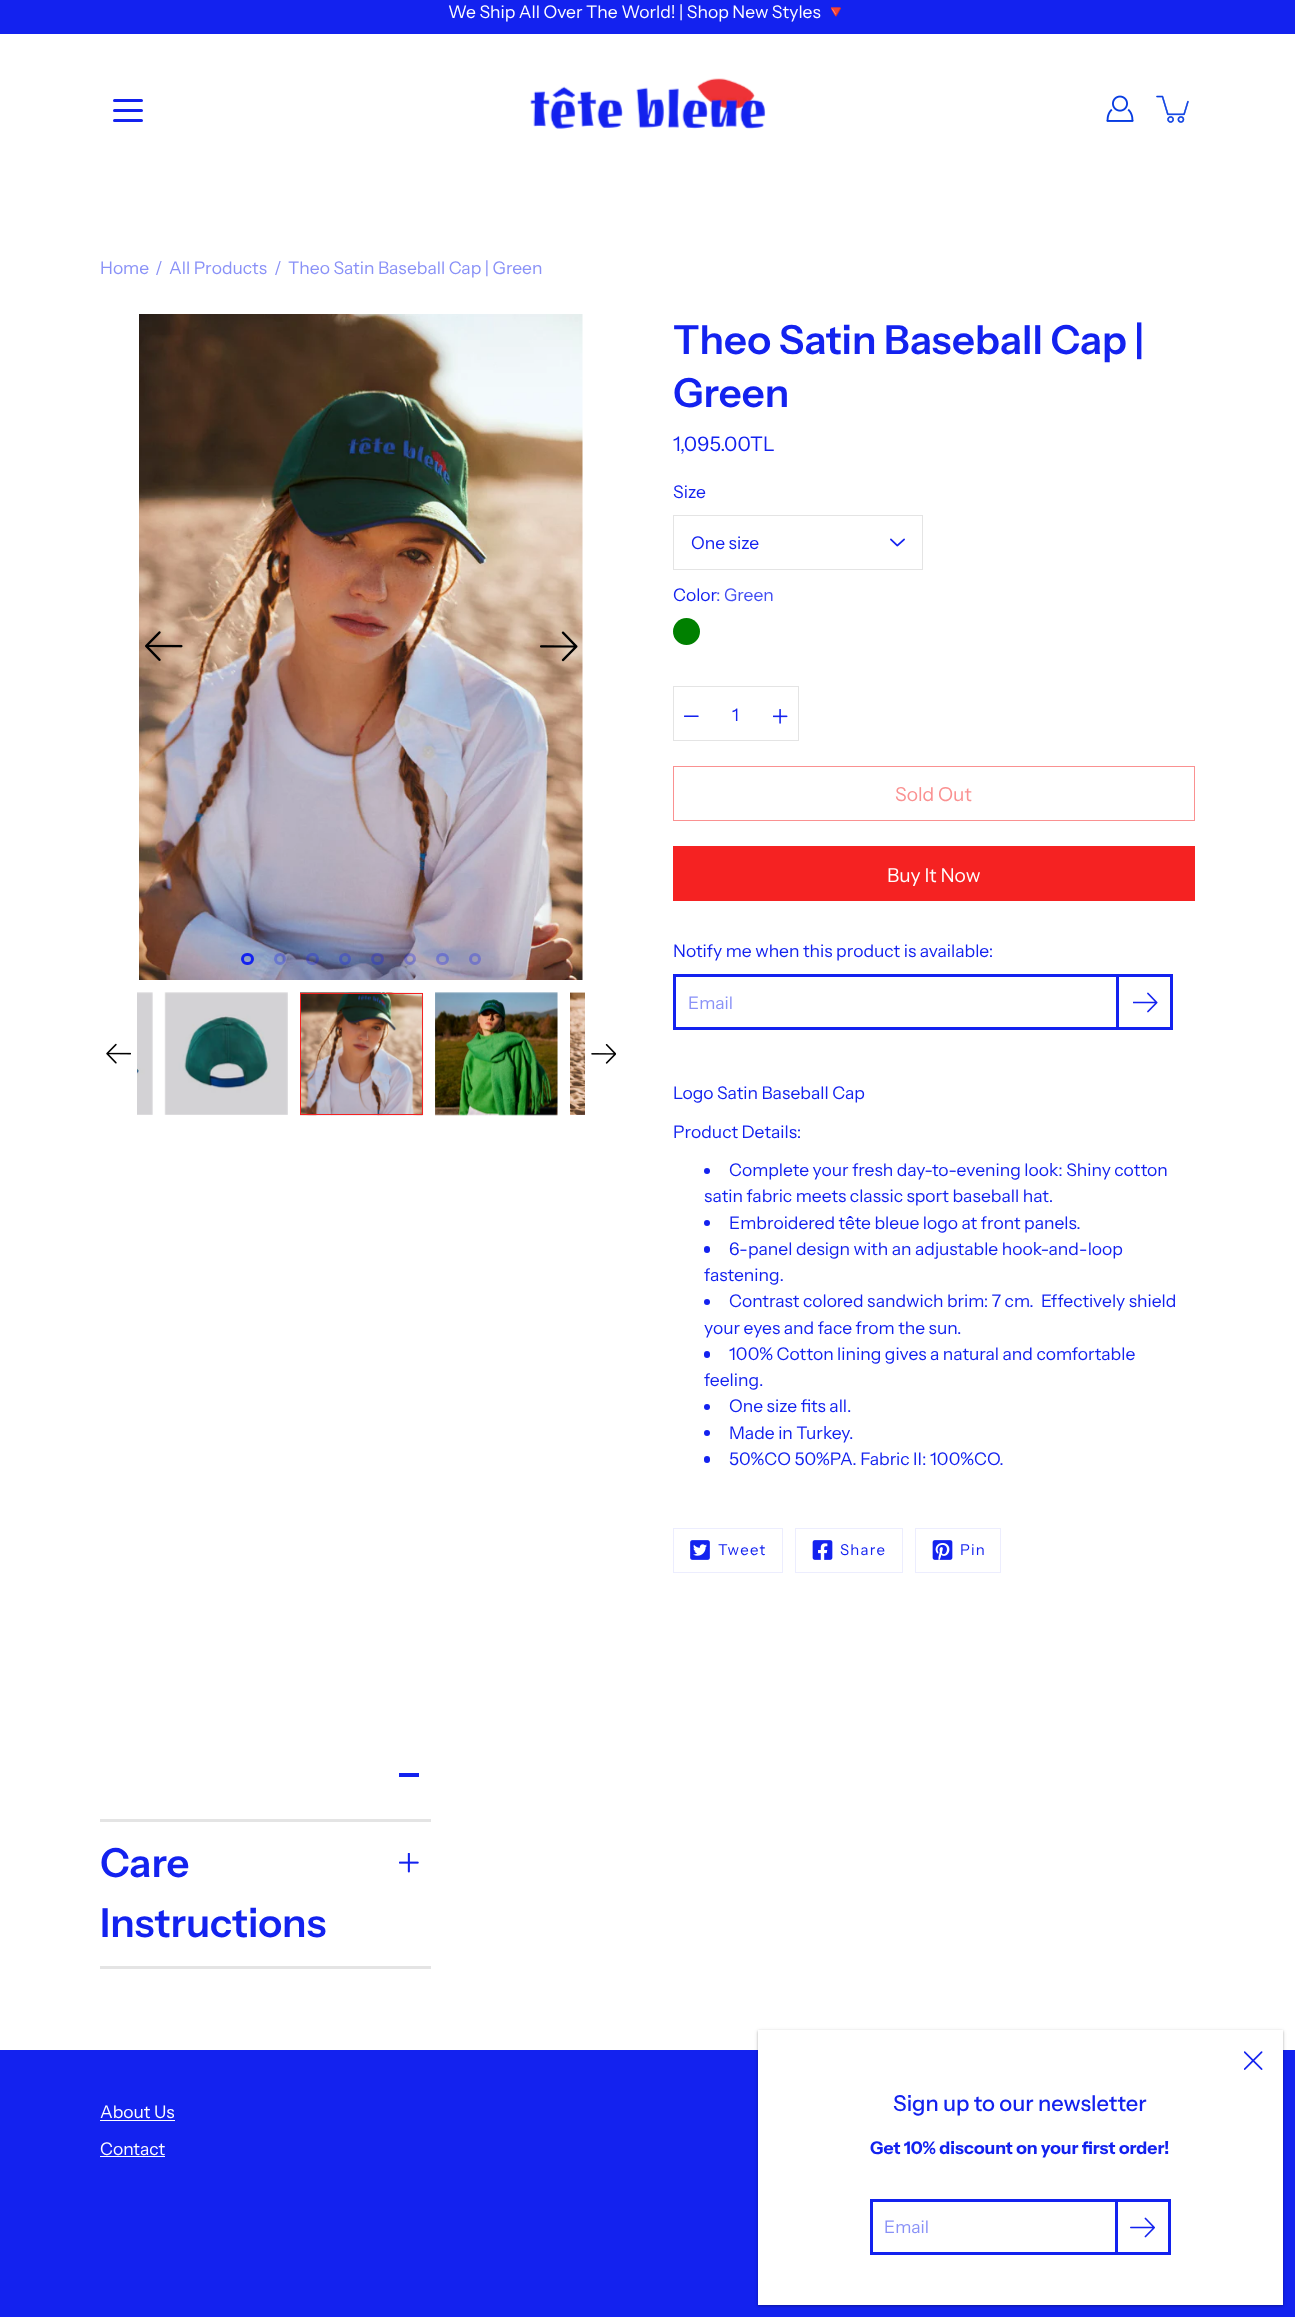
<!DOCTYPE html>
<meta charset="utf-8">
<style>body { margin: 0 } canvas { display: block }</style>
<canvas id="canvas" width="1295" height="2317"></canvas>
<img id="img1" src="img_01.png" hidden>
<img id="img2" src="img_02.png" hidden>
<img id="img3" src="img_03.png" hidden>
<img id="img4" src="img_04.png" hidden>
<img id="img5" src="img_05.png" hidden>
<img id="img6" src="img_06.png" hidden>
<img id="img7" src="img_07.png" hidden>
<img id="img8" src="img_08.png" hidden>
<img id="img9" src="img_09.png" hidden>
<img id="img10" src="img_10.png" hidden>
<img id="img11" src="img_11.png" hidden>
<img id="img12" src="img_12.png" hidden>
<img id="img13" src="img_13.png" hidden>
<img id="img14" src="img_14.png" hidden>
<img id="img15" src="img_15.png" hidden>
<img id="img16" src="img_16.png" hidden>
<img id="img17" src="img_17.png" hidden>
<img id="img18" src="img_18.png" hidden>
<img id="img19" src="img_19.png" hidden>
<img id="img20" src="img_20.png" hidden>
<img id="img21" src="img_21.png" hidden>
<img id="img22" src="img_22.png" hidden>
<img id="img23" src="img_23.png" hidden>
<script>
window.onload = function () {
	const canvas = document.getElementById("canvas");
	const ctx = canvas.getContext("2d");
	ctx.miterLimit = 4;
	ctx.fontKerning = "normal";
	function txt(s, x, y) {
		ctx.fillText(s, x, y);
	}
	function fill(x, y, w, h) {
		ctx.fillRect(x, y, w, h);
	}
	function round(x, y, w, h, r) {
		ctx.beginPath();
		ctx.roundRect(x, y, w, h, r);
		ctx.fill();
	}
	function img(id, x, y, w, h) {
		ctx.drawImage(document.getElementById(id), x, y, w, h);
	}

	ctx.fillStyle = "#FFFFFF";
	fill(0, 0, 1295, 2317);
	ctx.fillStyle = "#1322EF";
	fill(0, 0, 1295, 34);
	img("img1", 530, 78, 236, 51);
	round(113, 109, 30, 3, 1.5);
	round(113, 99, 30, 3, 1.5);
	round(113, 119, 30, 3, 1.5);
	img("img2", 1106, 95, 28, 27);
	img("img3", 1156, 95, 33, 28);
	img("img4", 139, 314, 444, 666);
	img("img5", 145, 631, 38, 30);
	img("img6", 540, 631, 38, 31);
	ctx.beginPath();
	ctx.roundRect(242.5, 954.5, 10, 9, 4.5);
	ctx.strokeStyle = "#1322EF";
	ctx.lineWidth = 3;
	ctx.stroke();
	ctx.beginPath();
	ctx.arc(280, 959, 4.5, 0, Math.PI * 2);
	ctx.strokeStyle = "rgba(19, 34, 239, 0.3)";
	ctx.stroke();
	ctx.beginPath();
	ctx.roundRect(307.5, 954.5, 10, 9, 4.5);
	ctx.stroke();
	ctx.beginPath();
	ctx.arc(345, 959, 4.5, 0, Math.PI * 2);
	ctx.stroke();
	ctx.beginPath();
	ctx.roundRect(372.5, 954.5, 10, 9, 4.5);
	ctx.stroke();
	ctx.beginPath();
	ctx.arc(410, 959, 4.5, 0, Math.PI * 2);
	ctx.stroke();
	ctx.beginPath();
	ctx.roundRect(437.5, 954.5, 10, 9, 4.5);
	ctx.stroke();
	ctx.beginPath();
	ctx.arc(475, 959, 4.5, 0, Math.PI * 2);
	ctx.stroke();
	img("img7", 106, 1043, 25, 21);
	img("img8", 137, 992, 16, 123);
	img("img9", 164, 992, 124, 123);
	img("img10", 300, 992, 124, 124);
	ctx.strokeStyle = "#F52222";
	ctx.lineWidth = 1;
	ctx.strokeRect(300.5, 993.5, 122, 121);
	img("img11", 435, 992, 123, 124);
	img("img12", 570, 992, 15, 123);
	img("img13", 591, 1044, 25, 20);
	ctx.strokeStyle = "#E4E4E4";
	ctx.strokeRect(673.5, 515.5, 249, 54);
	img("img14", 890, 538, 15, 9);
	ctx.fillStyle = "#008000";
	ctx.beginPath();
	ctx.arc(686.5, 631.5, 13.5, 0, Math.PI * 2);
	ctx.fill();
	ctx.strokeRect(673.5, 686.5, 125, 54);
	img("img15", 684, 715, 15, 2);
	img("img16", 773, 709, 15, 15);
	ctx.strokeStyle = "#FA9191";
	ctx.strokeRect(673.5, 766.5, 521, 54);
	ctx.fillStyle = "#F52222";
	fill(673, 846, 522, 55);
	ctx.strokeStyle = "#1322EF";
	ctx.lineWidth = 3;
	ctx.strokeRect(674.5, 975.5, 497, 53);
	ctx.strokeRect(1117.5, 975.5, 54, 53);
	img("img17", 1133, 992, 25, 21);
	ctx.fillStyle = "#1322EF";
	ctx.beginPath();
	ctx.arc(707, 1171, 3, 0, Math.PI * 2);
	ctx.fill();
	ctx.beginPath();
	ctx.arc(707, 1223, 3, 0, Math.PI * 2);
	ctx.fill();
	round(704, 1246, 6, 7, 3);
	ctx.beginPath();
	ctx.arc(707, 1302, 3, 0, Math.PI * 2);
	ctx.fill();
	round(704, 1351, 6, 7, 3);
	ctx.beginPath();
	ctx.arc(707, 1407, 3, 0, Math.PI * 2);
	ctx.fill();
	ctx.beginPath();
	ctx.arc(707, 1433, 3, 0, Math.PI * 2);
	ctx.fill();
	round(704, 1456, 6, 7, 3);
	ctx.strokeStyle = "#ECEDFE";
	ctx.lineWidth = 1;
	ctx.strokeRect(673.5, 1528.5, 109, 44);
	img("img18", 690, 1540, 20, 20);
	ctx.strokeRect(795.5, 1528.5, 107, 44);
	img("img19", 812, 1540, 21, 20);
	ctx.strokeRect(915.5, 1528.5, 85, 44);
	img("img20", 932, 1540, 21, 20);
	ctx.fillStyle = "#E4E4E4";
	fill(100, 1819, 331, 3);
	ctx.fillStyle = "#1322EF";
	fill(399, 1773, 20, 4);
	ctx.fillStyle = "#E4E4E4";
	fill(100, 1966, 331, 3);
	img("img21", 399, 1853, 20, 20);
	ctx.fillStyle = "#1322EF";
	fill(0, 2050, 1295, 267);
	ctx.fillStyle = "#FFFFFF";
	fill(100, 2120, 75, 1);
	fill(100, 2156, 65, 1);
	ctx.fillStyle = "rgba(0, 0, 0, 0.24)";
	ctx.filter = "blur(1px)";
	ctx.beginPath();
	ctx.rect(758, 2031, 525, 275);
	ctx.fill();
	ctx.filter = "none";
	ctx.fillStyle = "rgba(0, 0, 0, 0.12)";
	ctx.filter = "blur(2px)";
	ctx.beginPath();
	ctx.rect(758, 2031, 525, 275);
	ctx.fill();
	ctx.filter = "none";
	ctx.fillStyle = "#FFFFFF";
	fill(758, 2030, 525, 275);
	img("img22", 1244, 2051, 19, 19);
	ctx.strokeStyle = "#1322EF";
	ctx.lineWidth = 3;
	ctx.strokeRect(871.5, 2200.5, 298, 53);
	ctx.strokeRect(1116.5, 2200.5, 53, 53);
	img("img23", 1130, 2217, 25, 21);
	ctx.font = "17.5px Instrument Sans";
	txt("We Ship All Over The World! | Shop New Styles", 448, 18);
	ctx.font = "17.5px Noto Color Emoji";
	txt("🔻", 825, 18);
	ctx.font = "17.5px Instrument Sans";
	ctx.fillStyle = "#8991F7";
	txt("Home", 100, 274);
	txt("/", 155, 274);
	txt("All Products", 169, 274);
	txt("/", 274, 274);
	txt("Theo Satin Baseball Cap | Green", 288, 274);
	ctx.font = "600 40px Instrument Sans";
	ctx.fillStyle = "#1322EF";
	txt("Theo Satin Baseball Cap |", 673, 354);
	txt("Green", 673, 407);
	ctx.font = "20px Instrument Sans";
	txt("1,095.00TL", 673, 451);
	ctx.font = "17.5px Instrument Sans";
	txt("Size", 673, 498);
	txt("One size", 691, 549);
	txt("Color", 673, 601);
	ctx.fillStyle = "#424EF2";
	txt(": Green", 716, 601);
	ctx.fillStyle = "#1322EF";
	txt("1", 732, 721);
	ctx.font = "19.25px Instrument Sans";
	ctx.fillStyle = "#FA9191";
	txt("Sold Out", 895, 801);
	ctx.fillStyle = "#FFFFFF";
	txt("Buy It Now", 887, 882);
	ctx.font = "17.5px Instrument Sans";
	ctx.fillStyle = "#1322EF";
	txt("Notify me when this product is available:", 673, 957);
	ctx.fillStyle = "#8991F7";
	txt("Email", 688, 1009);
	ctx.fillStyle = "#1322EF";
	txt("Logo Satin Baseball Cap", 673, 1099);
	txt("Product Details:", 673, 1138);
	txt("Complete your fresh day-to-evening look: Shiny cotton", 729, 1176);
	txt("satin fabric meets classic sport baseball hat.", 704, 1202);
	txt("Embroidered tête bleue logo at front panels.", 729, 1229);
	txt("6-panel design with an adjustable hook-and-loop", 729, 1255);
	txt("fastening.", 704, 1281);
	txt("Contrast colored sandwich brim: 7 cm.", 729, 1307);
	txt("E", 1041, 1307);
	txt("ffectively shield", 1051, 1307);
	txt("your eyes and face from the sun.", 704, 1334);
	txt("100% Cotton lining gives a natural and comfortable", 729, 1360);
	txt("feeling.", 704, 1386);
	txt("One size fits all.", 729, 1412);
	txt("Made in Turkey.", 729, 1439);
	txt("50%CO 50%PA. Fabric II: 100%CO.", 729, 1465);
	ctx.letterSpacing = "1.25px";
	ctx.font = "15px Instrument Sans";
	txt("Tweet", 718, 1555);
	txt("Share", 840, 1555);
	txt("Pin", 960, 1555);
	ctx.letterSpacing = "0px";
	ctx.font = "600 40px Instrument Sans";
	txt("Care", 100, 1877);
	txt("Instructions", 100, 1937);
	ctx.font = "17.5px Instrument Sans";
	ctx.fillStyle = "#FFFFFF";
	txt("About Us", 100, 2118);
	txt("Contact", 100, 2155);
	ctx.font = "500 21.9px Instrument Sans";
	ctx.fillStyle = "#1322EF";
	txt("Sign up to our newsletter", 893, 2111);
	ctx.font = "bold 17.5px Instrument Sans";
	txt("Get 10% discount on your first order!", 870, 2154);
	ctx.font = "17.5px Instrument Sans";
	ctx.fillStyle = "#8991F7";
	txt("Email", 884, 2233);
};
</script>
